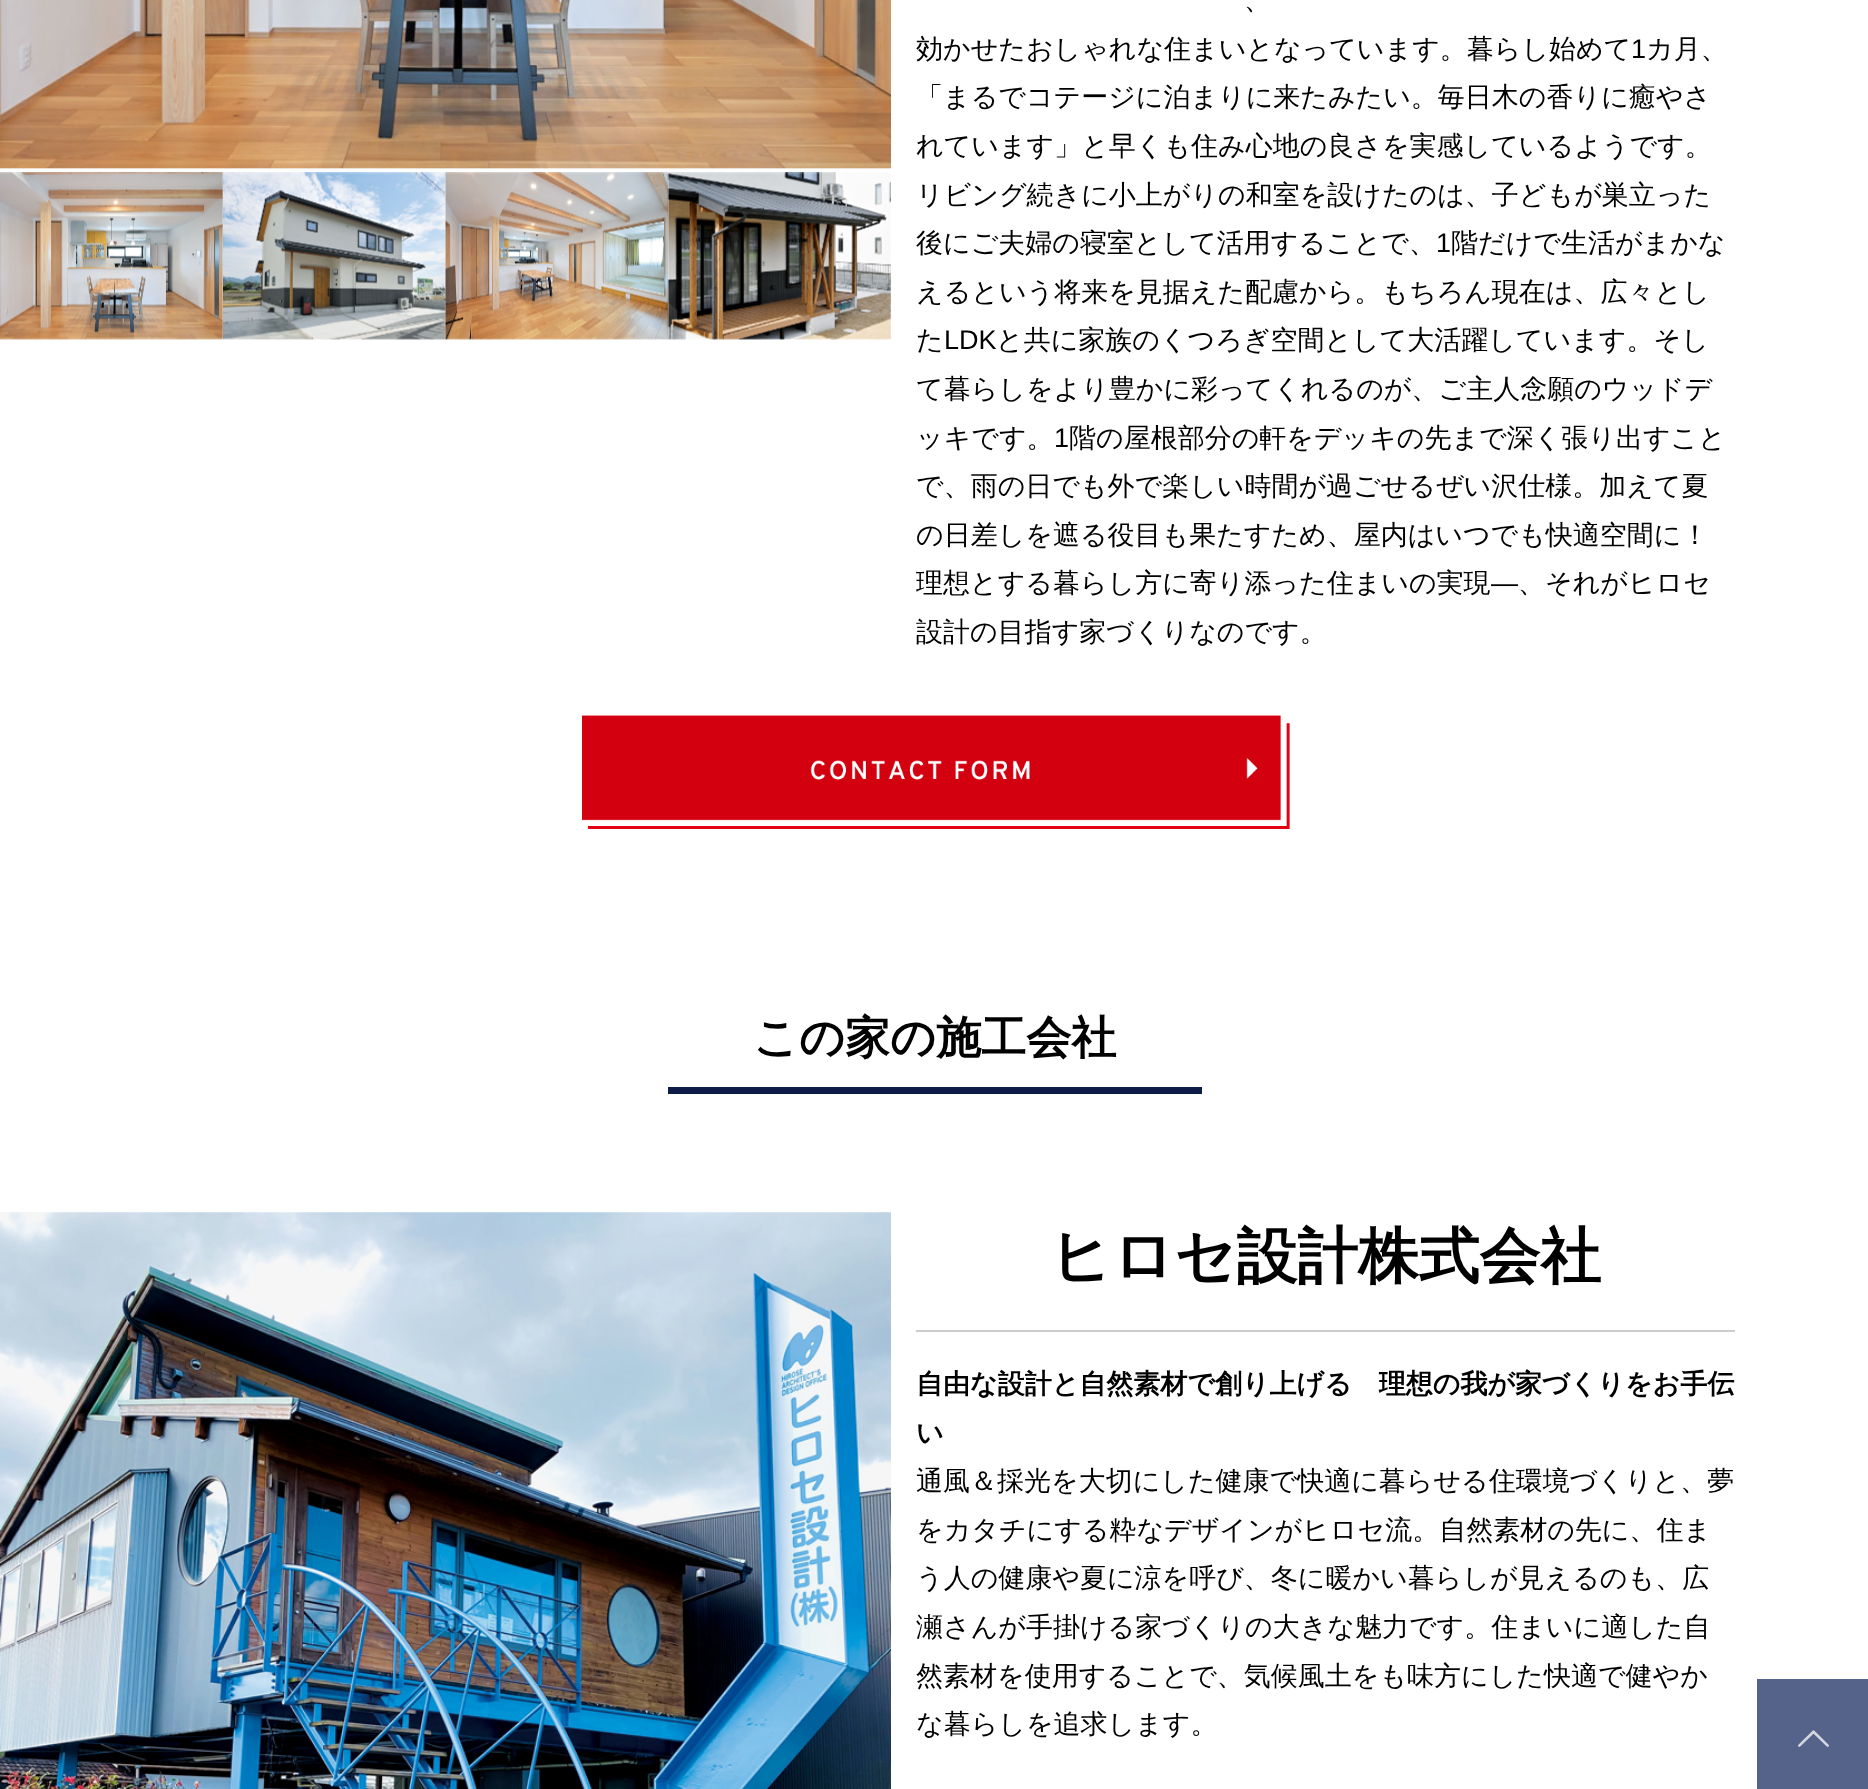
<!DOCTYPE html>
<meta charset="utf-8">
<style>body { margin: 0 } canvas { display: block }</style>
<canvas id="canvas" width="1868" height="1789"></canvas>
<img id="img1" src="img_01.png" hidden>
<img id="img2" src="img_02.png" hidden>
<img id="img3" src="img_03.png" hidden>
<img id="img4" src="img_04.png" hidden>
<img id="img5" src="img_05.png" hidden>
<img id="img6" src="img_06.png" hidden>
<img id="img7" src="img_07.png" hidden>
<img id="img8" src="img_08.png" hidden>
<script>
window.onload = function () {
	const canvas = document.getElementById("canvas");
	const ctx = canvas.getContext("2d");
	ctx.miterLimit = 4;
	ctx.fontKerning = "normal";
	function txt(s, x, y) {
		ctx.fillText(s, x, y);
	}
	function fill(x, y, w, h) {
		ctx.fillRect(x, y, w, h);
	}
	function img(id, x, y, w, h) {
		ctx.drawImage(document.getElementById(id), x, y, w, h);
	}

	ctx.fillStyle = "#FFFFFF";
	fill(0, 0, 1868, 1789);
	img("img1", 0, 0, 891, 169);
	img("img2", 0, 172, 223, 168);
	img("img3", 223, 172, 223, 168);
	img("img4", 445, 172, 224, 168);
	img("img5", 667, 172, 224, 168);
	img("img6", 582, 715, 708, 114);
	ctx.fillStyle = "#0D1B48";
	fill(668, 1087, 534, 7);
	img("img7", 0, 1212, 891, 577);
	ctx.fillStyle = "#CCCCCC";
	fill(916, 1330, 819, 2);
	ctx.fillStyle = "#55628A";
	fill(1757, 1679, 111, 110);
	img("img8", 1798, 1730, 31, 17);
	ctx.font = "500 27px WenQuanYi Zen Hei";
	ctx.fillStyle = "#000000";
	txt("、", 1244, 9);
	txt("効かせたおしゃれな住まいとなっています。暮らし始めて", 916, 58);
	ctx.font = "27px Liberation Sans";
	txt("1", 1631, 58);
	ctx.font = "500 27px WenQuanYi Zen Hei";
	txt("カ月、", 1646, 58);
	txt("「まるでコテージに泊まりに来たみたい。毎日木の香りに癒やさ", 916, 106);
	txt("れています」と早くも住み心地の良さを実感しているようです。", 916, 155);
	txt("リビング続きに小上がりの和室を設けたのは、子どもが巣立った", 916, 204);
	txt("後にご夫婦の寝室として活用することで、", 916, 252);
	ctx.font = "27px Liberation Sans";
	txt("1", 1436, 252);
	ctx.font = "500 27px WenQuanYi Zen Hei";
	txt("階だけで生活がまかな", 1451, 252);
	txt("えるという将来を見据えた配慮から。もちろん現在は、広々とし", 916, 301);
	txt("た", 916, 349);
	ctx.font = "27px Liberation Sans";
	txt("LDK", 944, 349);
	ctx.font = "500 27px WenQuanYi Zen Hei";
	txt("と共に家族のくつろぎ空間として大活躍しています。そし", 996, 349);
	txt("て暮らしをより豊かに彩ってくれるのが、ご主人念願のウッドデ", 916, 398);
	txt("ッキです。", 916, 447);
	ctx.font = "27px Liberation Sans";
	txt("1", 1054, 447);
	ctx.font = "500 27px WenQuanYi Zen Hei";
	txt("階の屋根部分の軒をデッキの先まで深く張り出すこと", 1069, 447);
	txt("で、雨の日でも外で楽しい時間が過ごせるぜい沢仕様。加えて夏", 916, 495);
	txt("の日差しを遮る役目も果たすため、屋内はいつでも快適空間に！", 916, 544);
	txt("理想とする暮らし方に寄り添った住まいの実現", 916, 592);
	ctx.font = "27px Liberation Sans";
	txt("―", 1491, 592);
	ctx.font = "500 27px WenQuanYi Zen Hei";
	txt("、それがヒロセ", 1518, 592);
	txt("設計の目指す家づくりなのです。", 916, 641);
	ctx.font = "bold 45px WenQuanYi Zen Hei";
	txt("この家の施工会社", 753, 1053);
	ctx.font = "bold 60.75px WenQuanYi Zen Hei";
	txt("ヒロセ設計株式会社", 1050, 1277);
	ctx.font = "bold 27px WenQuanYi Zen Hei";
	txt("自由な設計と自然素材で創り上げる　理想の我が家づくりをお手伝", 916, 1393);
	txt("い", 916, 1442);
	ctx.font = "500 27px WenQuanYi Zen Hei";
	txt("通風＆採光を大切にした健康で快適に暮らせる住環境づくりと、夢", 916, 1490);
	txt("をカタチにする粋なデザインがヒロセ流。自然素材の先に、住ま", 916, 1539);
	txt("う人の健康や夏に涼を呼び、冬に暖かい暮らしが見えるのも、広", 916, 1587);
	txt("瀬さんが手掛ける家づくりの大きな魅力です。住まいに適した自", 916, 1636);
	txt("然素材を使用することで、気候風土をも味方にした快適で健やか", 916, 1685);
	txt("な暮らしを追求します。", 916, 1733);
};
</script>
